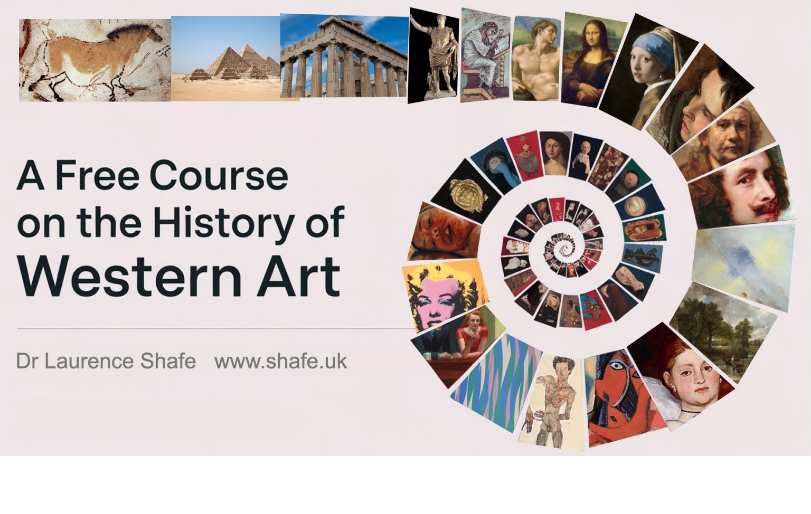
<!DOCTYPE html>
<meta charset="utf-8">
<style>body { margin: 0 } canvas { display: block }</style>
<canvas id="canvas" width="811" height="514"></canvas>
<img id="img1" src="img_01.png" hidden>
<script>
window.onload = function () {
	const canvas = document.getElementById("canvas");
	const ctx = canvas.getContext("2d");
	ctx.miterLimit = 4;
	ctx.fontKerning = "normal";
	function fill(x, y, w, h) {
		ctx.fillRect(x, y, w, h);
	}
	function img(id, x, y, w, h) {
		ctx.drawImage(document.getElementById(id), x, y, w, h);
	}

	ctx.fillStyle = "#FFFFFF";
	fill(0, 0, 811, 514);
	img("img1", 0, 0, 811, 456);
};
</script>
